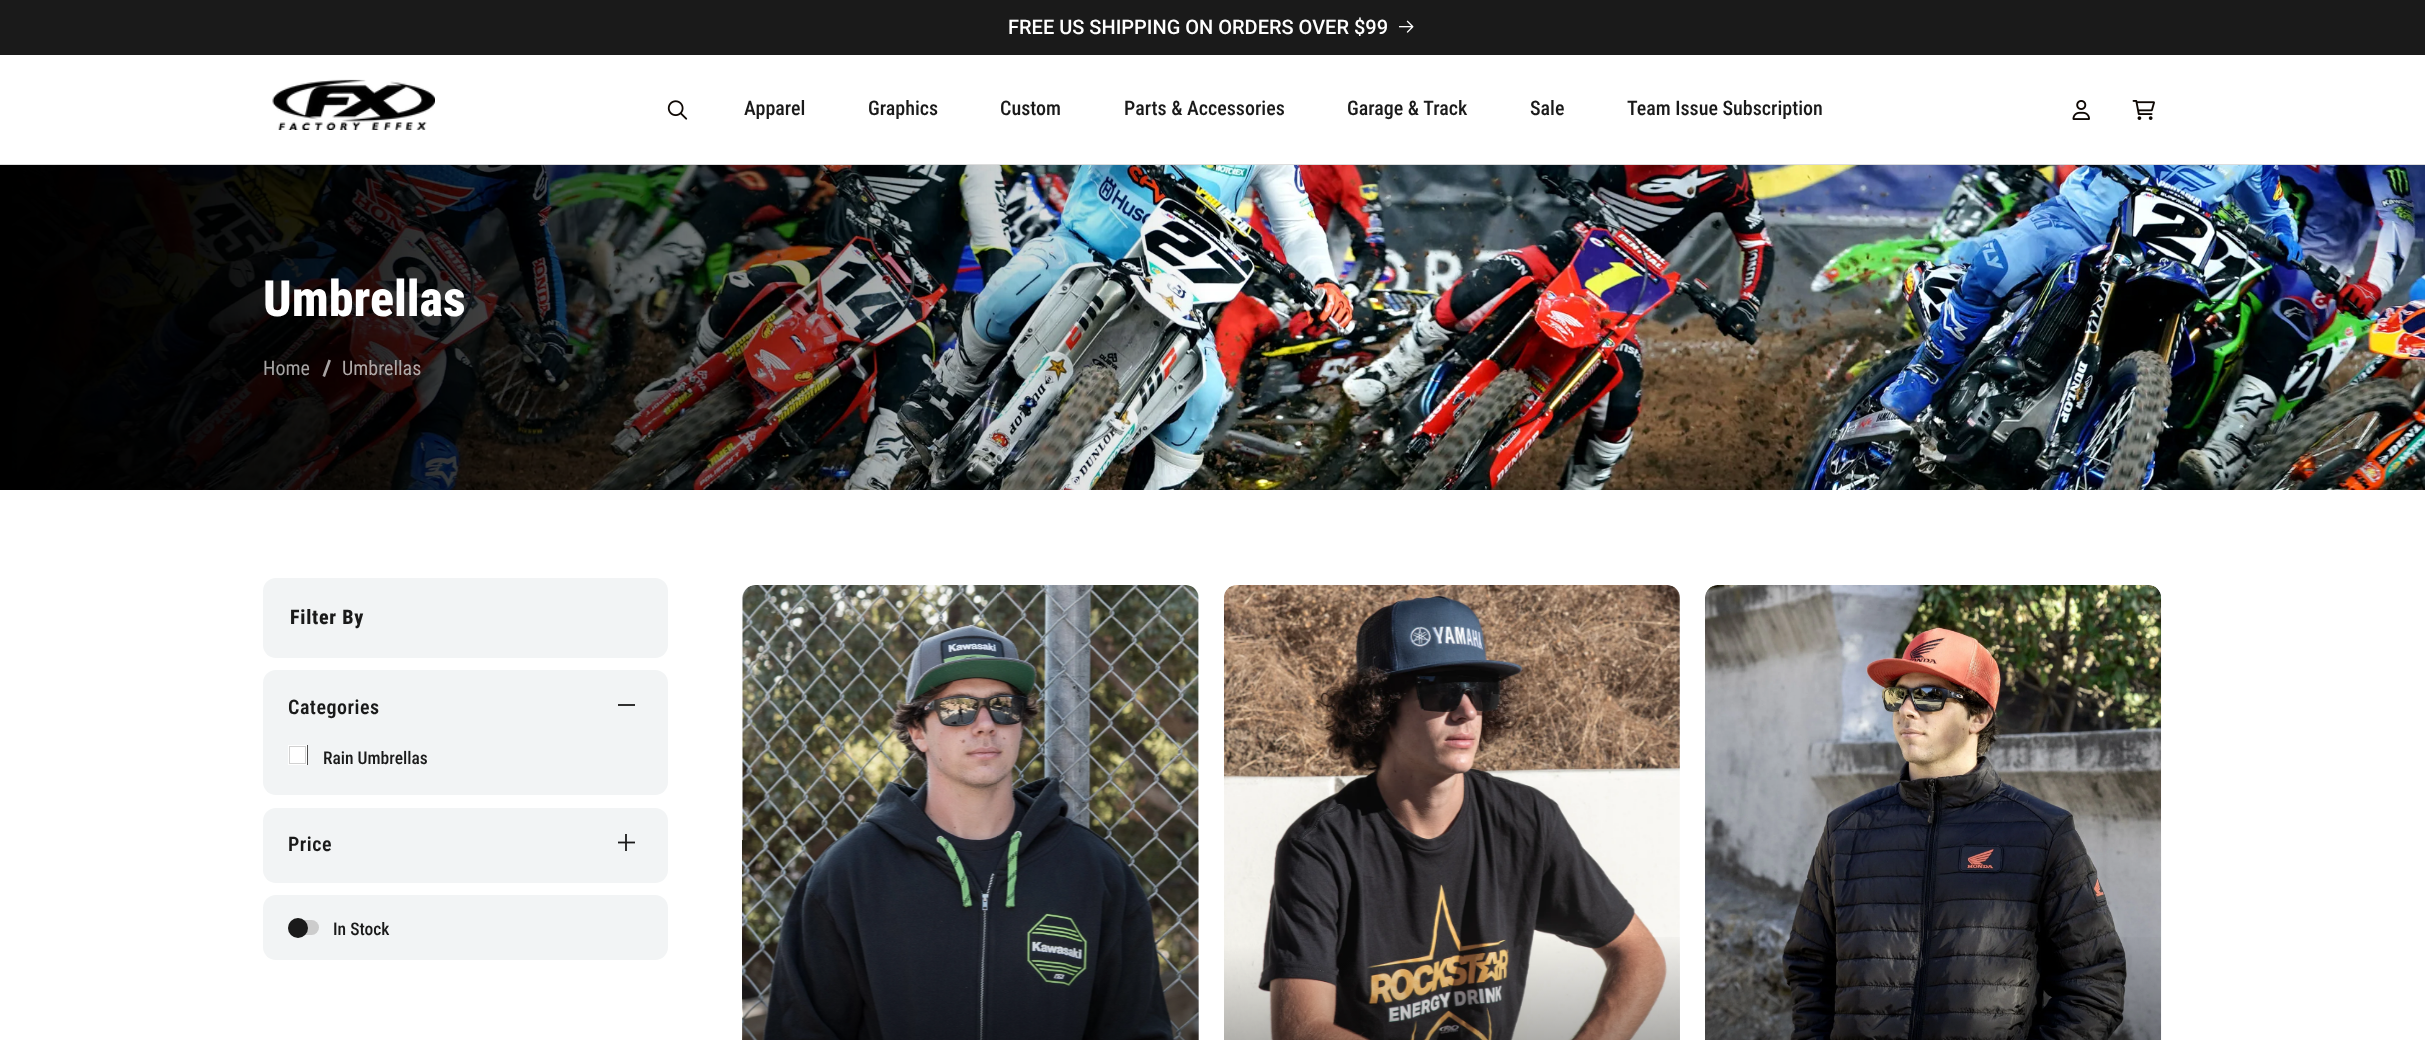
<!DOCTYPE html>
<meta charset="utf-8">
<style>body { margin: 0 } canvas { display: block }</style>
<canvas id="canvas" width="2425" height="1040"></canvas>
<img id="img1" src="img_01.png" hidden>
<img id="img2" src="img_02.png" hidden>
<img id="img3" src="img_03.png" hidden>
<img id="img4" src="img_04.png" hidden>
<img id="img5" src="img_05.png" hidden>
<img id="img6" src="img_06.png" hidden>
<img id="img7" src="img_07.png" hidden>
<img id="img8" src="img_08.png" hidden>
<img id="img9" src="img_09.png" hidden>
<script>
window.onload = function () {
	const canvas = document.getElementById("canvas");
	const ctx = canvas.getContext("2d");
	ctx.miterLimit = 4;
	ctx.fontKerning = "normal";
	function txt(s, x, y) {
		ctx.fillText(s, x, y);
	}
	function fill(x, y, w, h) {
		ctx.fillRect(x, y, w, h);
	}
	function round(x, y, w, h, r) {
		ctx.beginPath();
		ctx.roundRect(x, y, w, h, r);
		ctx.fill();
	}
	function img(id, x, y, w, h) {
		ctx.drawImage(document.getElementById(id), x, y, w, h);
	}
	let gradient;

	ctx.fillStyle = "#FFFFFF";
	fill(0, 0, 2425, 1040);
	ctx.fillStyle = "#1A1A1A";
	fill(0, 0, 2425, 55);
	img("img1", 1399, 20, 15, 13);
	ctx.fillStyle = "#DDDDDD";
	fill(0, 164, 2425, 1);
	img("img2", 272, 79, 163, 51);
	img("img3", 667, 100, 21, 20);
	img("img4", 2072, 100, 18, 20);
	img("img5", 2132, 100, 23, 20);
	img("img6", 0, 165, 2425, 325);
	ctx.fillStyle = "#A8A3A3";
	ctx.beginPath();
	ctx.moveTo(328.5, 359.5);
	ctx.lineTo(331, 360.5);
	ctx.lineTo(325, 377);
	ctx.lineTo(322.5, 376);
	ctx.closePath();
	ctx.fill();
	ctx.fillStyle = "#F2F4F5";
	round(263, 578, 405, 80, 13);
	round(263, 670, 405, 125, 13);
	ctx.fillStyle = "#303030";
	fill(618, 704, 17, 2);
	ctx.fillStyle = "#FFFFFF";
	fill(288, 745, 19, 20);
	ctx.save();
	ctx.beginPath();
	ctx.rect(288, 745, 20, 20);
	ctx.clip();
	ctx.strokeStyle = "#4D4D4D";
	ctx.strokeRect(287.5, 744.5, 20, 21);
	ctx.restore();
	ctx.strokeStyle = "#D1D1D1";
	ctx.strokeRect(289.5, 746.5, 16, 17);
	ctx.fillStyle = "#F2F4F5";
	round(263, 808, 405, 75, 13);
	ctx.fillStyle = "#303030";
	fill(625, 834, 2, 17);
	ctx.save();
	ctx.beginPath();
	ctx.rect(618, 834, 17, 17);
	ctx.clip();
	ctx.beginPath();
	ctx.moveTo(635, 842.5);
	ctx.lineTo(617.5, 842.5);
	ctx.strokeStyle = "#1A1A1A";
	ctx.lineWidth = 1.8;
	ctx.stroke();
	ctx.restore();
	ctx.fillStyle = "#F2F4F5";
	round(263, 895, 405, 65, 13);
	ctx.fillStyle = "#CCCCCC";
	round(288, 920, 31, 15, 7.5);
	ctx.fillStyle = "#1A1A1A";
	ctx.beginPath();
	ctx.arc(298, 928, 10, 0, Math.PI * 2);
	ctx.fill();
	img("img7", 742, 585, 457, 455);
	gradient = ctx.createLinearGradient(982, 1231, 959, 577);
	gradient.addColorStop(0.12, "rgba(0, 0, 0, 0.6)");
	gradient.addColorStop(0.45, "rgba(0, 0, 0, 0)");
	ctx.fillStyle = gradient;
	fill(743, 936, 456, 104);
	img("img8", 1224, 585, 456, 455);
	gradient = ctx.createLinearGradient(1463, 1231, 1441, 577);
	gradient.addColorStop(0.12, "rgba(0, 0, 0, 0.6)");
	gradient.addColorStop(0.45, "rgba(0, 0, 0, 0)");
	ctx.fillStyle = gradient;
	fill(1224, 937, 456, 103);
	img("img9", 1705, 585, 457, 455);
	gradient = ctx.createLinearGradient(1944, 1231, 1922, 577);
	gradient.addColorStop(0.12, "rgba(0, 0, 0, 0.6)");
	gradient.addColorStop(0.45, "rgba(0, 0, 0, 0)");
	ctx.fillStyle = gradient;
	fill(1705, 937, 456, 103);
	ctx.font = "500 20px Roboto";
	ctx.fillStyle = "#FFFFFF";
	txt("FREE US SHIPPING ON ORDERS OVER $99", 1008, 34);
	ctx.font = "500 20px Roboto Condensed";
	ctx.fillStyle = "#1A1A1A";
	txt("Apparel", 744, 115);
	txt("Graphics", 868, 115);
	txt("Custom", 1000, 115);
	txt("Parts & Accessories", 1124, 115);
	txt("Garage & Track", 1347, 115);
	txt("Sale", 1530, 115);
	txt("Team Issue Subscription", 1627, 115);
	ctx.font = "800 50px Roboto Condensed";
	ctx.fillStyle = "#FFFFFF";
	txt("Umbrellas", 263, 316);
	ctx.font = "20px Roboto Condensed";
	ctx.fillStyle = "#A6A4A4";
	txt("Home", 263, 375);
	ctx.fillStyle = "#B0A9A8";
	txt("Umbrellas", 342, 375);
	ctx.letterSpacing = "0.75px";
	ctx.font = "800 20px Roboto Condensed";
	ctx.fillStyle = "#1A1A1A";
	txt("Filter By", 290, 624);
	ctx.letterSpacing = "0.5px";
	ctx.font = "600 20px Roboto Condensed";
	txt("Categories", 288, 714);
	ctx.letterSpacing = "0px";
	ctx.font = "500 17.5px Roboto Condensed";
	txt("Rain Umbrellas", 323, 764);
	ctx.letterSpacing = "0.5px";
	ctx.font = "600 20px Roboto Condensed";
	txt("Price", 288, 851);
	ctx.letterSpacing = "0px";
	ctx.font = "500 17.5px Roboto Condensed";
	txt("In Stock", 333, 935);
};
</script>
